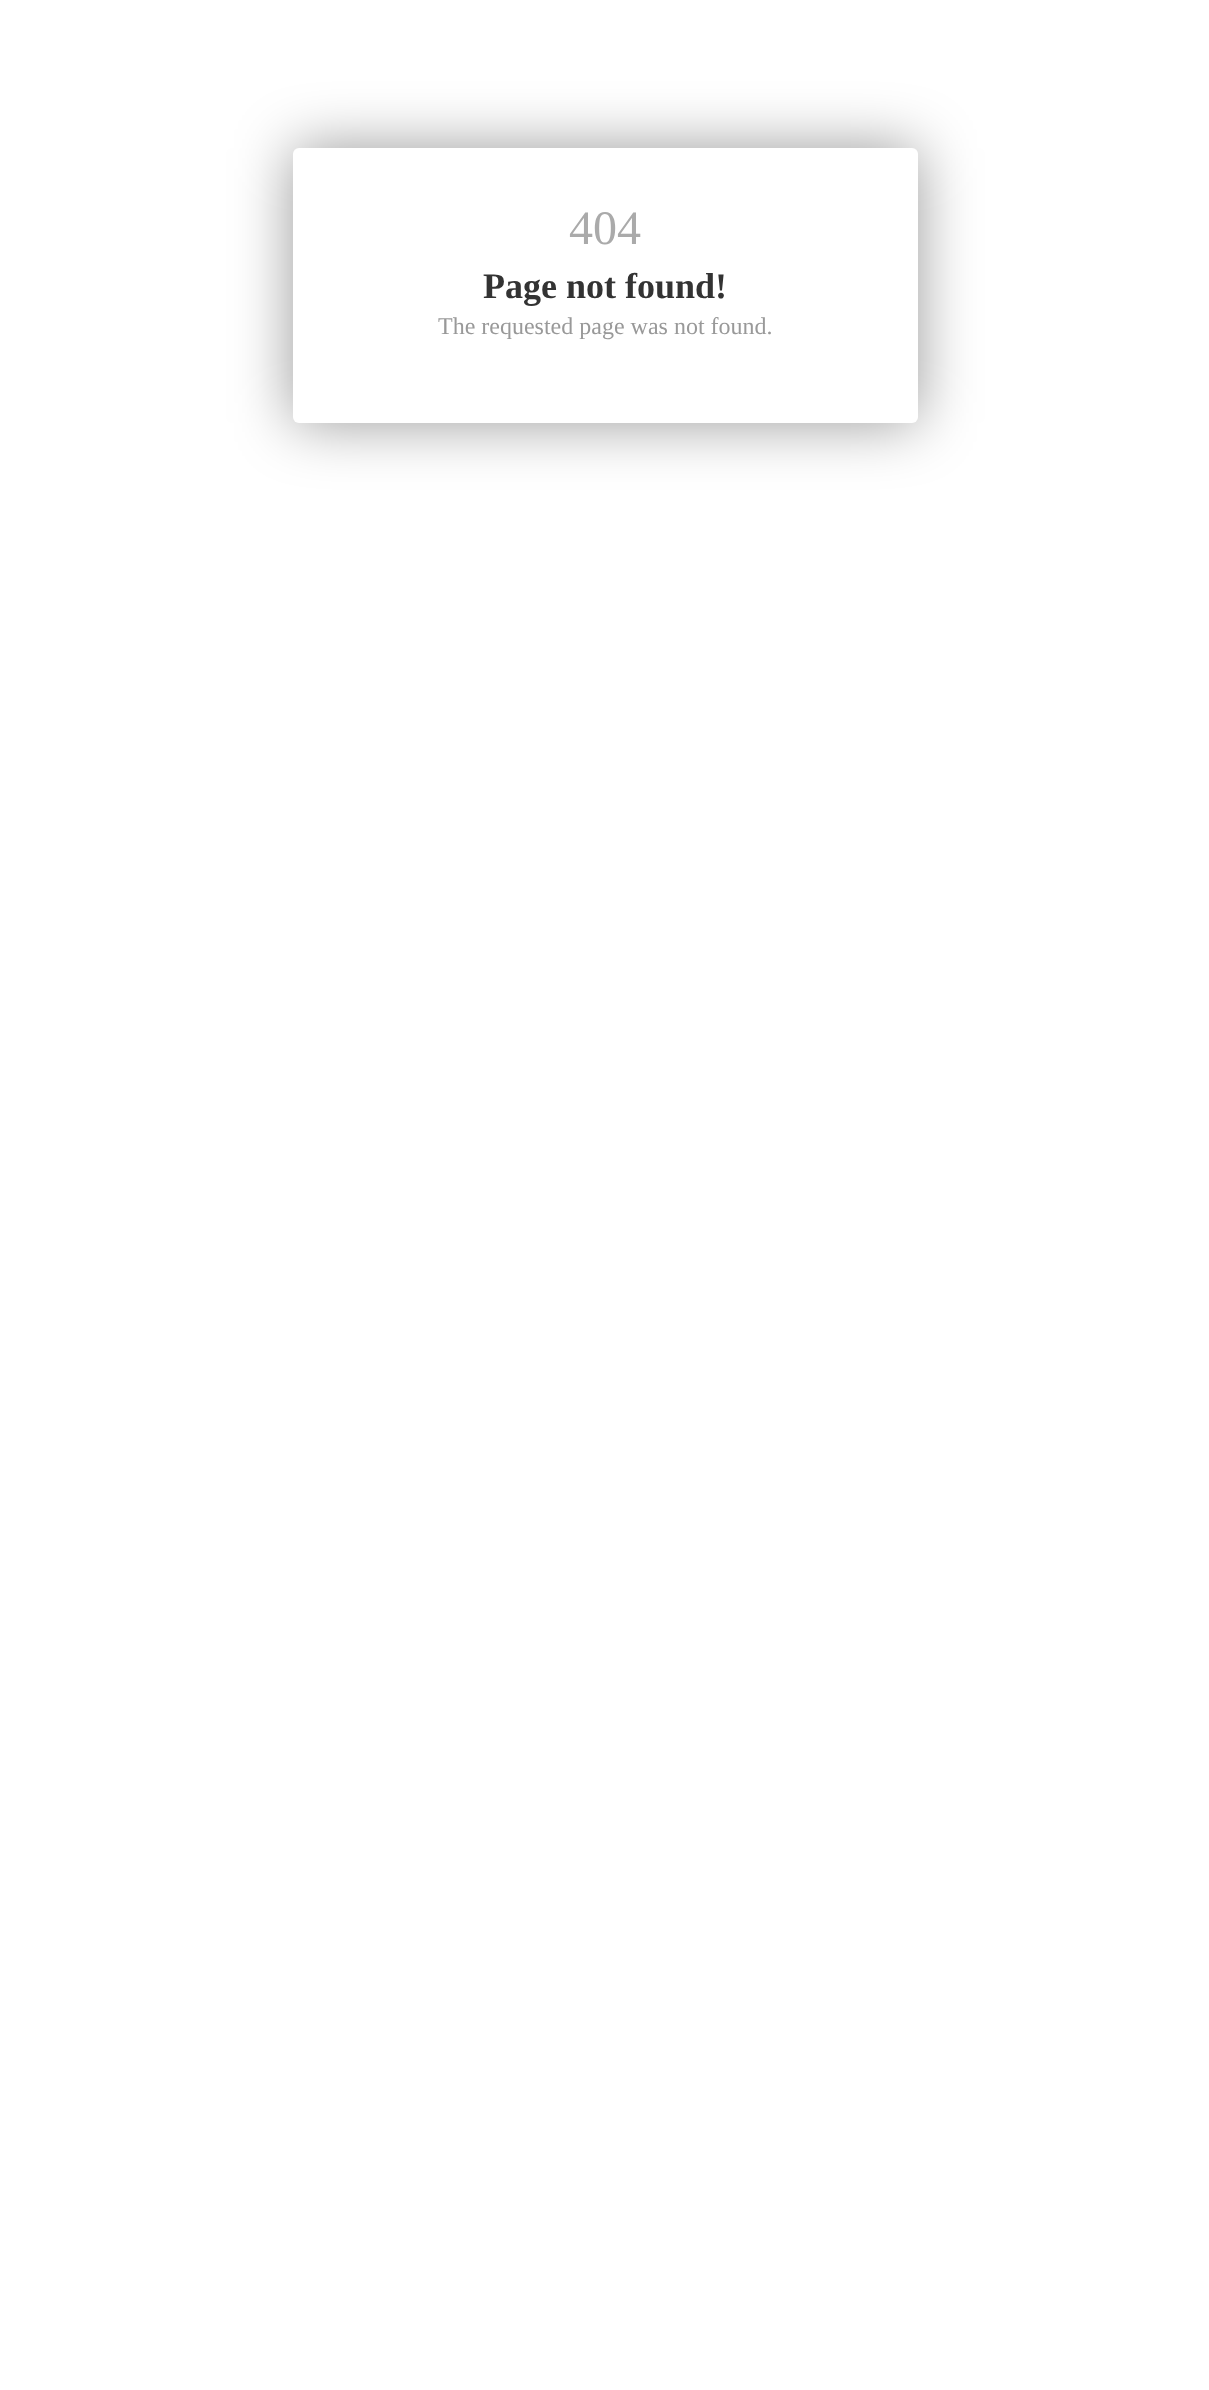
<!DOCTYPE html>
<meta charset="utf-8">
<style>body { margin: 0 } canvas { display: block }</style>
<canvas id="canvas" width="1209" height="2390"></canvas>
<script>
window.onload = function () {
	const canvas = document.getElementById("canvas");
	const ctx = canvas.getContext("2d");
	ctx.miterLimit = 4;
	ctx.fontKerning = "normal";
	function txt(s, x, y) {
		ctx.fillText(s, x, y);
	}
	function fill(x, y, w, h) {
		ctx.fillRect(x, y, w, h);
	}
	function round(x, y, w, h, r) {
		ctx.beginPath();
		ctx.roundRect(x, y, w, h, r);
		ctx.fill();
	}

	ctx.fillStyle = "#FFFFFF";
	fill(0, 0, 1209, 2390);
	ctx.fillStyle = "rgba(0, 0, 0, 0.4)";
	ctx.filter = "blur(30px)";
	ctx.beginPath();
	ctx.roundRect(293, 148, 625, 275, 6);
	ctx.fill();
	ctx.filter = "none";
	ctx.fillStyle = "#FFFFFF";
	round(293, 148, 625, 275, 6);
	ctx.font = "48px Liberation Serif";
	ctx.fillStyle = "#AAAAAA";
	txt("404", 569, 244);
	ctx.font = "bold 36px Liberation Serif";
	ctx.fillStyle = "#333333";
	txt("Page not found!", 483, 298);
	ctx.font = "24px Liberation Serif";
	ctx.fillStyle = "#999999";
	txt("The requested page was not found.", 438, 334);
};
</script>
